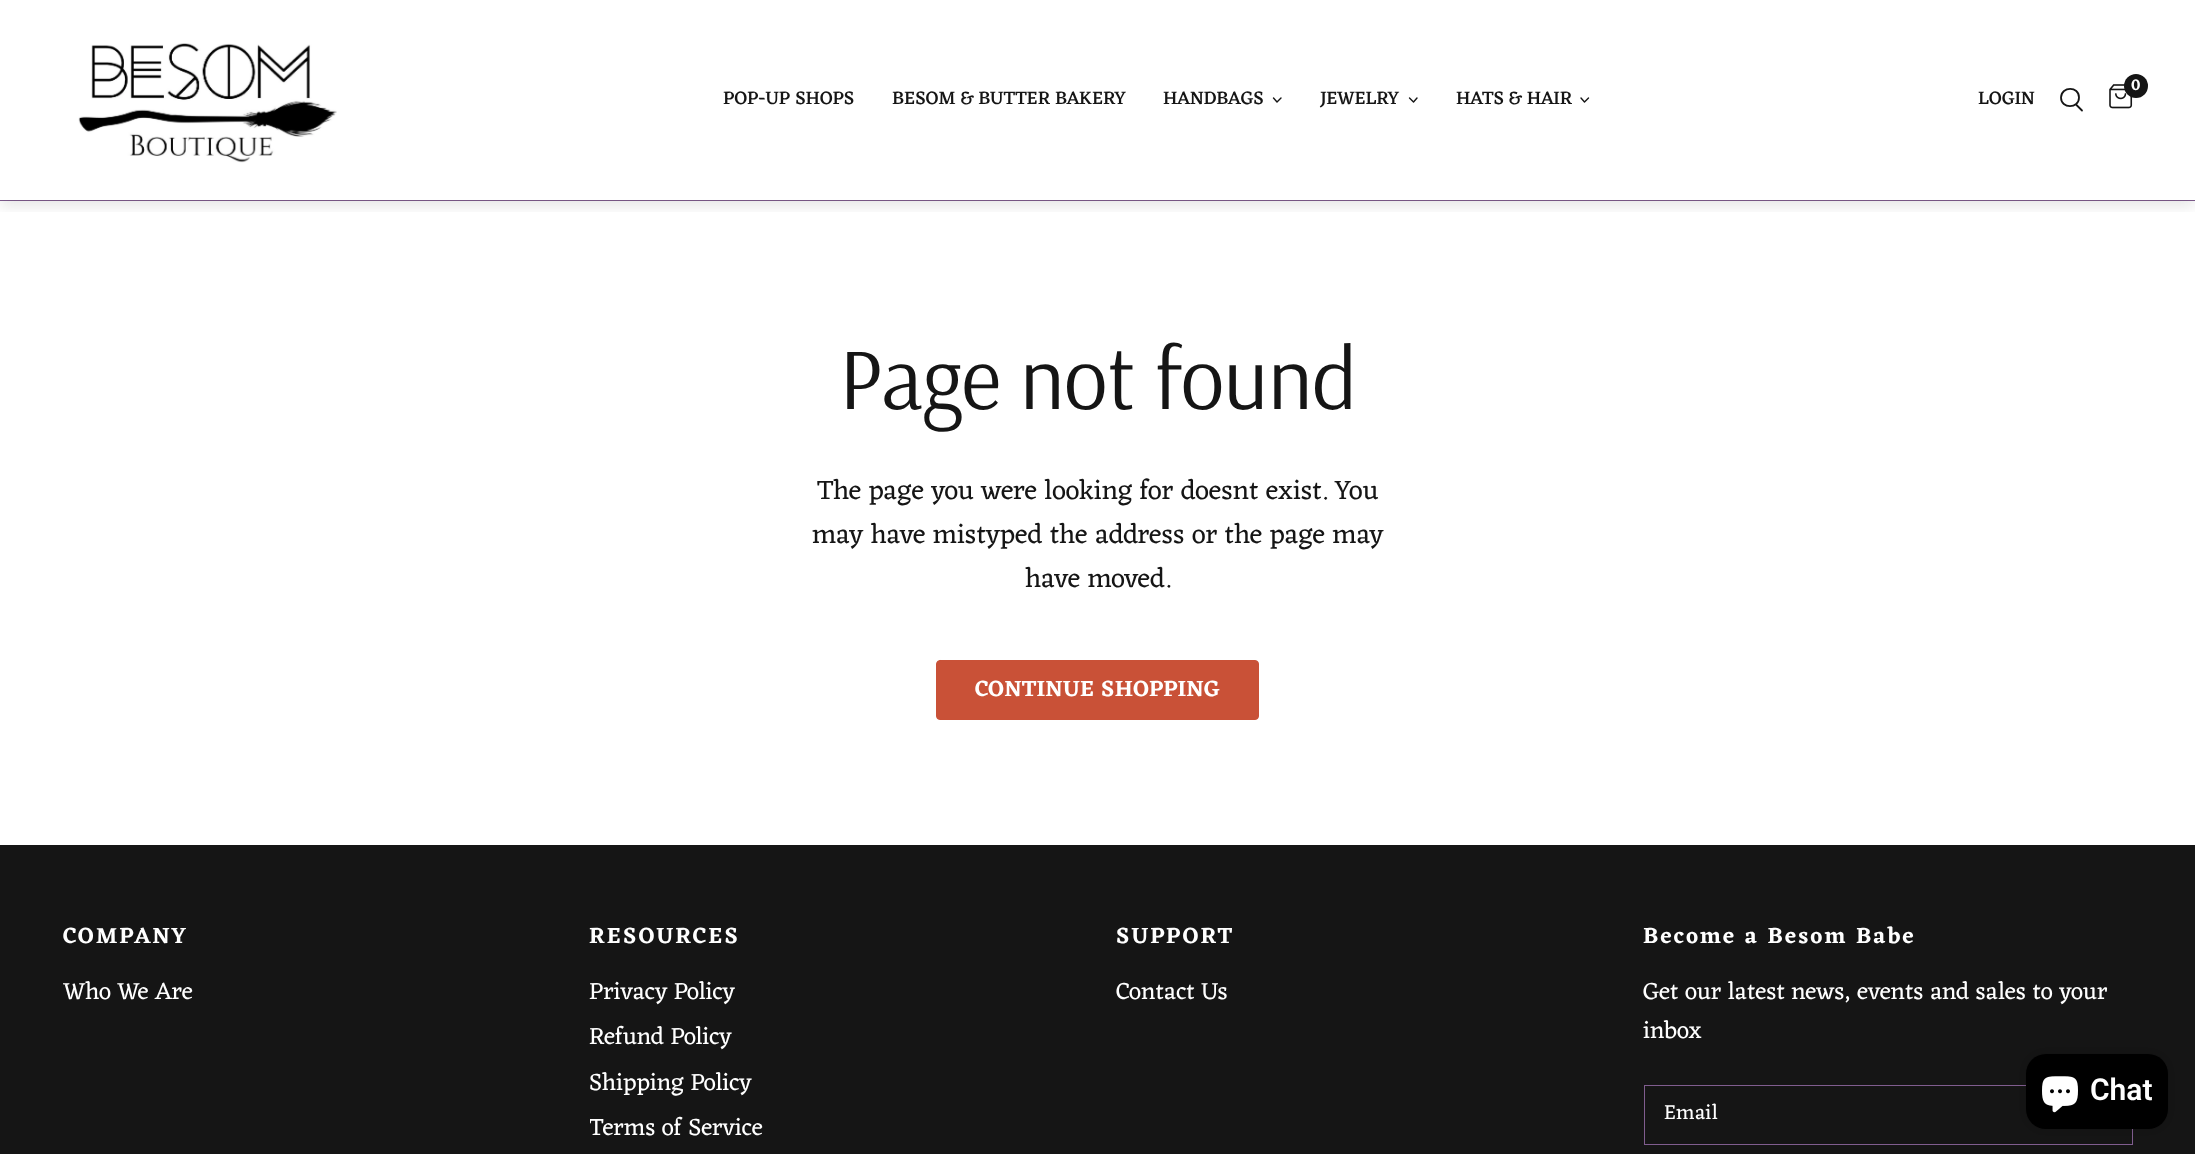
<!DOCTYPE html>
<meta charset="utf-8">
<style>body { margin: 0 } canvas { display: block }</style>
<canvas id="canvas" width="2195" height="1154"></canvas>
<img id="img1" src="img_01.png" hidden>
<img id="img2" src="img_02.png" hidden>
<img id="img3" src="img_03.png" hidden>
<script>
window.onload = function () {
	const canvas = document.getElementById("canvas");
	const ctx = canvas.getContext("2d");
	ctx.miterLimit = 4;
	ctx.fontKerning = "normal";
	function txt(s, x, y) {
		ctx.fillText(s, x, y);
	}
	function fill(x, y, w, h) {
		ctx.fillRect(x, y, w, h);
	}
	function round(x, y, w, h, r) {
		ctx.beginPath();
		ctx.roundRect(x, y, w, h, r);
		ctx.fill();
	}
	function img(id, x, y, w, h) {
		ctx.drawImage(document.getElementById(id), x, y, w, h);
	}

	ctx.fillStyle = "#FFFFFF";
	fill(0, 0, 2195, 1154);
	ctx.fillStyle = "#805D8F";
	fill(0, 200, 2195, 1);
	ctx.save();
	ctx.beginPath();
	ctx.rect(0, 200, 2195, 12);
	ctx.clip();
	ctx.fillStyle = "rgba(0, 0, 0, 0.1)";
	ctx.filter = "blur(7.5px)";
	ctx.beginPath();
	ctx.rect(0, 6, 2195, 200);
	ctx.fill();
	ctx.filter = "none";
	ctx.restore();
	img("img1", 78, 43, 259, 120);
	ctx.beginPath();
	ctx.moveTo(1281, 98);
	ctx.lineTo(1277, 102);
	ctx.lineTo(1273.5, 98);
	ctx.strokeStyle = "#151515";
	ctx.lineWidth = 1.4;
	ctx.lineCap = "round";
	ctx.lineJoin = "round";
	ctx.stroke();
	ctx.beginPath();
	ctx.moveTo(1417, 98);
	ctx.lineTo(1413.5, 102);
	ctx.lineTo(1409.5, 98);
	ctx.stroke();
	ctx.beginPath();
	ctx.moveTo(1588.5, 98);
	ctx.lineTo(1584.5, 102);
	ctx.lineTo(1581, 98);
	ctx.stroke();
	img("img2", 2109, 84, 24, 25);
	ctx.fillStyle = "#151515";
	ctx.beginPath();
	ctx.arc(2136, 86, 12, 0, Math.PI * 2);
	ctx.fill();
	ctx.beginPath();
	ctx.moveTo(2076, 104.5);
	ctx.lineTo(2082, 110.5);
	ctx.moveTo(2079, 97.5);
	ctx.bezierCurveTo(2079, 109, 2061, 109, 2061, 97.5);
	ctx.bezierCurveTo(2061.5, 86, 2079, 86, 2079, 97.5);
	ctx.closePath();
	ctx.lineWidth = 1.8;
	ctx.stroke();
	ctx.fillStyle = "#C95137";
	ctx.beginPath();
	ctx.roundRect(936.5, 660.5, 322, 59, 3.5);
	ctx.fill();
	ctx.strokeStyle = "#C95137";
	ctx.lineWidth = 1;
	ctx.lineJoin = "miter";
	ctx.stroke();
	ctx.fillStyle = "#151515";
	fill(0, 845, 2195, 309);
	ctx.strokeStyle = "#805D8F";
	ctx.strokeRect(1644.5, 1085.5, 488, 59);
	ctx.fillStyle = "rgba(0, 0, 0, 0.15)";
	ctx.filter = "blur(3px)";
	ctx.beginPath();
	ctx.roundRect(2026, 1054, 142, 75, 20);
	ctx.fill();
	ctx.filter = "none";
	ctx.fillStyle = "#000000";
	round(2026, 1054, 142, 75, 20);
	img("img3", 2042, 1076, 36, 37);
	ctx.font = "500 18.75px Eczar";
	ctx.fillStyle = "#151515";
	txt("POP-UP SHOPS", 723, 104);
	txt("BESOM & BUTTER BAKERY", 892, 104);
	txt("HANDBAGS", 1163, 104);
	txt("JEWELRY", 1320, 104);
	txt("HATS & HAIR", 1456, 104);
	ctx.font = "600 16px Eczar";
	ctx.fillStyle = "#FFFFFF";
	txt("0", 2131, 90);
	ctx.font = "500 18.75px Eczar";
	ctx.fillStyle = "#151515";
	txt("LOGIN", 1978, 104);
	ctx.letterSpacing = "-0.9px";
	ctx.font = "87.75px Arsenal";
	txt("Page not found", 839, 409);
	ctx.letterSpacing = "0px";
	ctx.font = "27.6px Eczar";
	txt("The page you were looking for doesnt exist. You", 817, 499);
	txt("may have mistyped the address or the page may", 812, 543);
	txt("have moved.", 1025, 587);
	ctx.letterSpacing = "0.5px";
	ctx.font = "600 22.75px Eczar";
	ctx.fillStyle = "#FFFFFF";
	txt("CONTINUE SHOPPING", 975, 696);
	ctx.letterSpacing = "2.25px";
	txt("COMPANY", 63, 943);
	ctx.letterSpacing = "0px";
	ctx.font = "24.4px Eczar";
	txt("Who We Are", 63, 999);
	ctx.letterSpacing = "2.25px";
	ctx.font = "600 22.75px Eczar";
	txt("RESOURCES", 589, 943);
	ctx.letterSpacing = "0px";
	ctx.font = "24.4px Eczar";
	txt("Privacy Policy", 589, 999);
	txt("Refund Policy", 589, 1044);
	txt("Shipping Policy", 589, 1090);
	ctx.save();
	ctx.beginPath();
	ctx.rect(590, 974, 489, 175);
	ctx.clip();
	txt("Terms of Service", 589, 1135);
	ctx.restore();
	ctx.letterSpacing = "2.25px";
	ctx.font = "600 22.75px Eczar";
	txt("SUPPORT", 1116, 943);
	ctx.letterSpacing = "0px";
	ctx.font = "24.4px Eczar";
	txt("Contact Us", 1116, 999);
	ctx.letterSpacing = "2.25px";
	ctx.font = "600 22.75px Eczar";
	txt("Become a Besom Babe", 1643, 943);
	ctx.letterSpacing = "0px";
	ctx.font = "24.4px Eczar";
	txt("Get our latest news, events and sales to your", 1643, 999);
	txt("inbox", 1643, 1038);
	ctx.letterSpacing = "0.5px";
	ctx.font = "21px Eczar";
	txt("Email", 1664, 1119);
	ctx.letterSpacing = "0px";
	ctx.font = "600 30px Roboto";
	txt("Chat", 2090, 1100);
};
</script>
